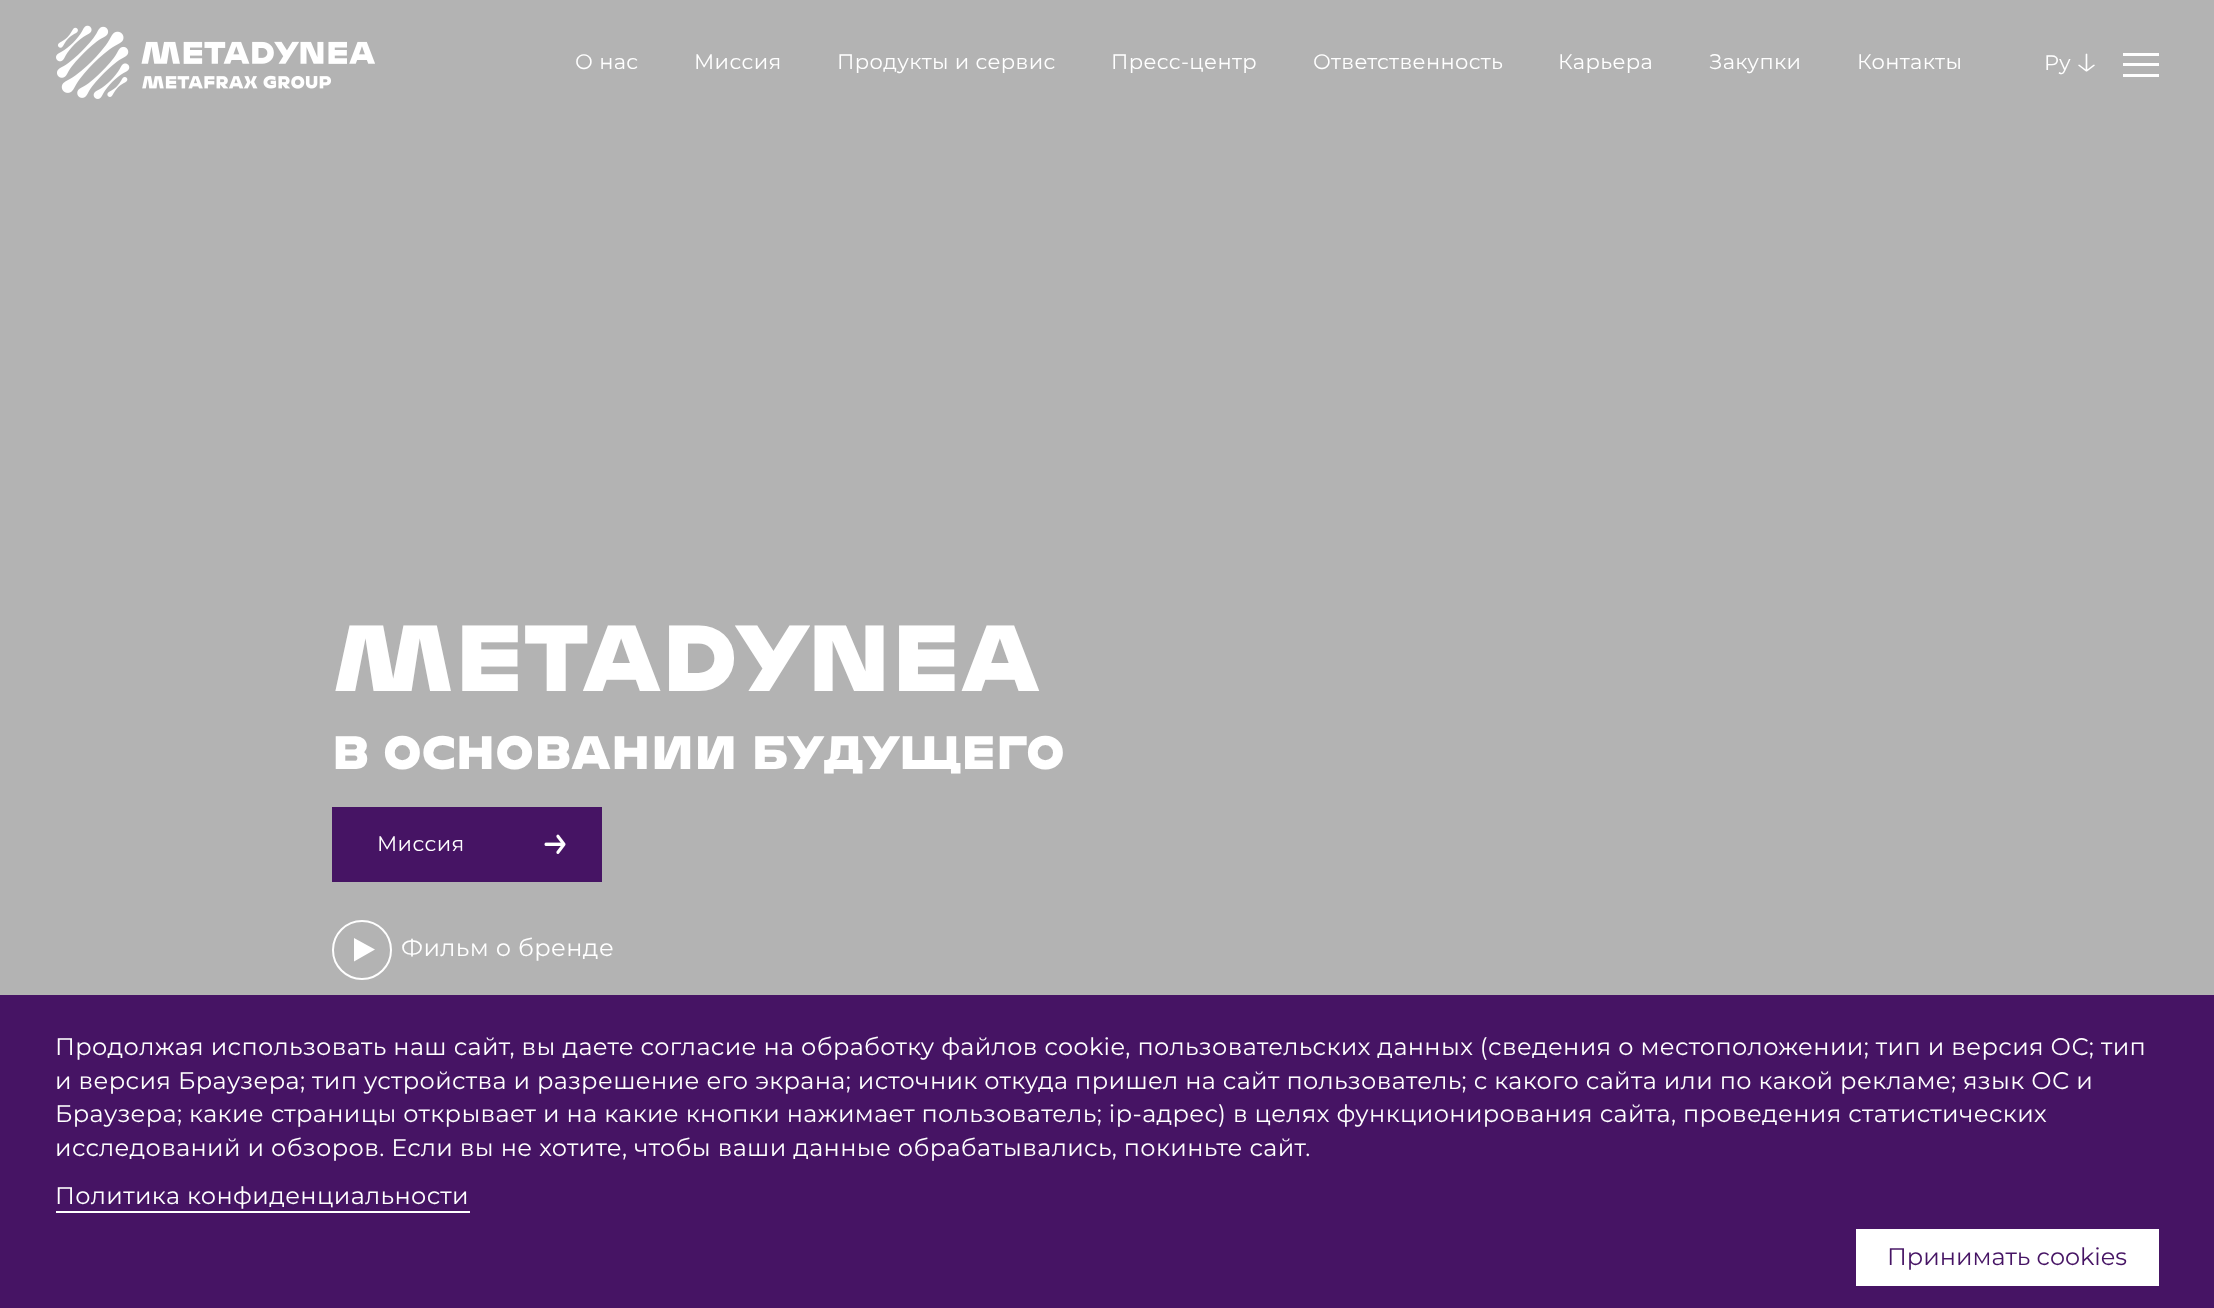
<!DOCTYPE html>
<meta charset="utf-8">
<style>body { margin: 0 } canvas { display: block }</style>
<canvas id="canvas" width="2214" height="1308"></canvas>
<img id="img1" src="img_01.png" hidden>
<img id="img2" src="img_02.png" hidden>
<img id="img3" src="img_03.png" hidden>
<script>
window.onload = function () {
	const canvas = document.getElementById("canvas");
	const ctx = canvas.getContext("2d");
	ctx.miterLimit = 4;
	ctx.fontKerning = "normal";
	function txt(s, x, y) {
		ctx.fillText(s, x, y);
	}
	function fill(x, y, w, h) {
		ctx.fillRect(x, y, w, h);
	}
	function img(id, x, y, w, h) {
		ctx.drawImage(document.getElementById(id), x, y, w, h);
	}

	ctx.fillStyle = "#B3B3B3";
	fill(0, 0, 2214, 1308);
	img("img1", 56, 25, 319, 74);
	img("img2", 2078, 53, 17, 19);
	ctx.fillStyle = "#FFFFFF";
	fill(2123, 53, 36, 3);
	fill(2123, 63, 36, 3);
	fill(2123, 74, 36, 3);
	ctx.fillStyle = "#461464";
	fill(332, 807, 270, 75);
	img("img3", 544, 834, 22, 20);
	ctx.beginPath();
	ctx.arc(362, 950, 29, 0, Math.PI * 2);
	ctx.strokeStyle = "#FFFFFF";
	ctx.lineWidth = 2;
	ctx.stroke();
	ctx.fillStyle = "#FFFFFF";
	ctx.beginPath();
	ctx.moveTo(354, 938);
	ctx.lineTo(375, 949.5);
	ctx.lineTo(354, 961.5);
	ctx.closePath();
	ctx.fill();
	ctx.fillStyle = "#461464";
	fill(0, 995, 2214, 313);
	ctx.fillStyle = "#FFFFFF";
	fill(56, 1211, 414, 2);
	fill(1856, 1229, 303, 57);
	ctx.letterSpacing = "0.38px";
	ctx.font = "21px Montserrat";
	txt("О нас", 575, 69);
	txt("Миссия", 694, 69);
	txt("Продукты и сервис", 837, 69);
	txt("Пресс-центр", 1111, 69);
	txt("Ответственность", 1313, 69);
	txt("Карьера", 1558, 69);
	txt("Закупки", 1709, 69);
	txt("Контакты", 1857, 69);
	txt("Ру", 2044, 70);
	ctx.font = "900 90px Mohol";
	txt("METADYNEA", 332, 691);
	ctx.font = "900 45px Mohol";
	txt("В ОСНОВАНИИ БУДУЩЕГО", 332, 769);
	ctx.font = "21px Montserrat";
	txt("Миссия", 377, 851);
	ctx.font = "24px Montserrat";
	txt("Фильм о бренде", 401, 956);
	txt("Продолжая использовать наш сайт, вы даете согласие на обработку файлов cookie, пользовательских данных (сведения о местоположении; тип и версия ОС; тип", 55, 1055);
	txt("и версия Браузера; тип устройства и разрешение его экрана; источник откуда пришел на сайт пользователь; с какого сайта или по какой рекламе; язык ОС и", 55, 1089);
	txt("Браузера; какие страницы открывает и на какие кнопки нажимает пользователь; ip-адрес) в целях функционирования сайта, проведения статистических", 55, 1122);
	txt("исследований и обзоров. Если вы не хотите, чтобы ваши данные обрабатывались, покиньте сайт.", 55, 1156);
	txt("Политика конфиденциальности", 55, 1204);
	ctx.letterSpacing = "0px";
	ctx.fillStyle = "#461464";
	txt("Принимать cookies", 1887, 1265);
};
</script>
